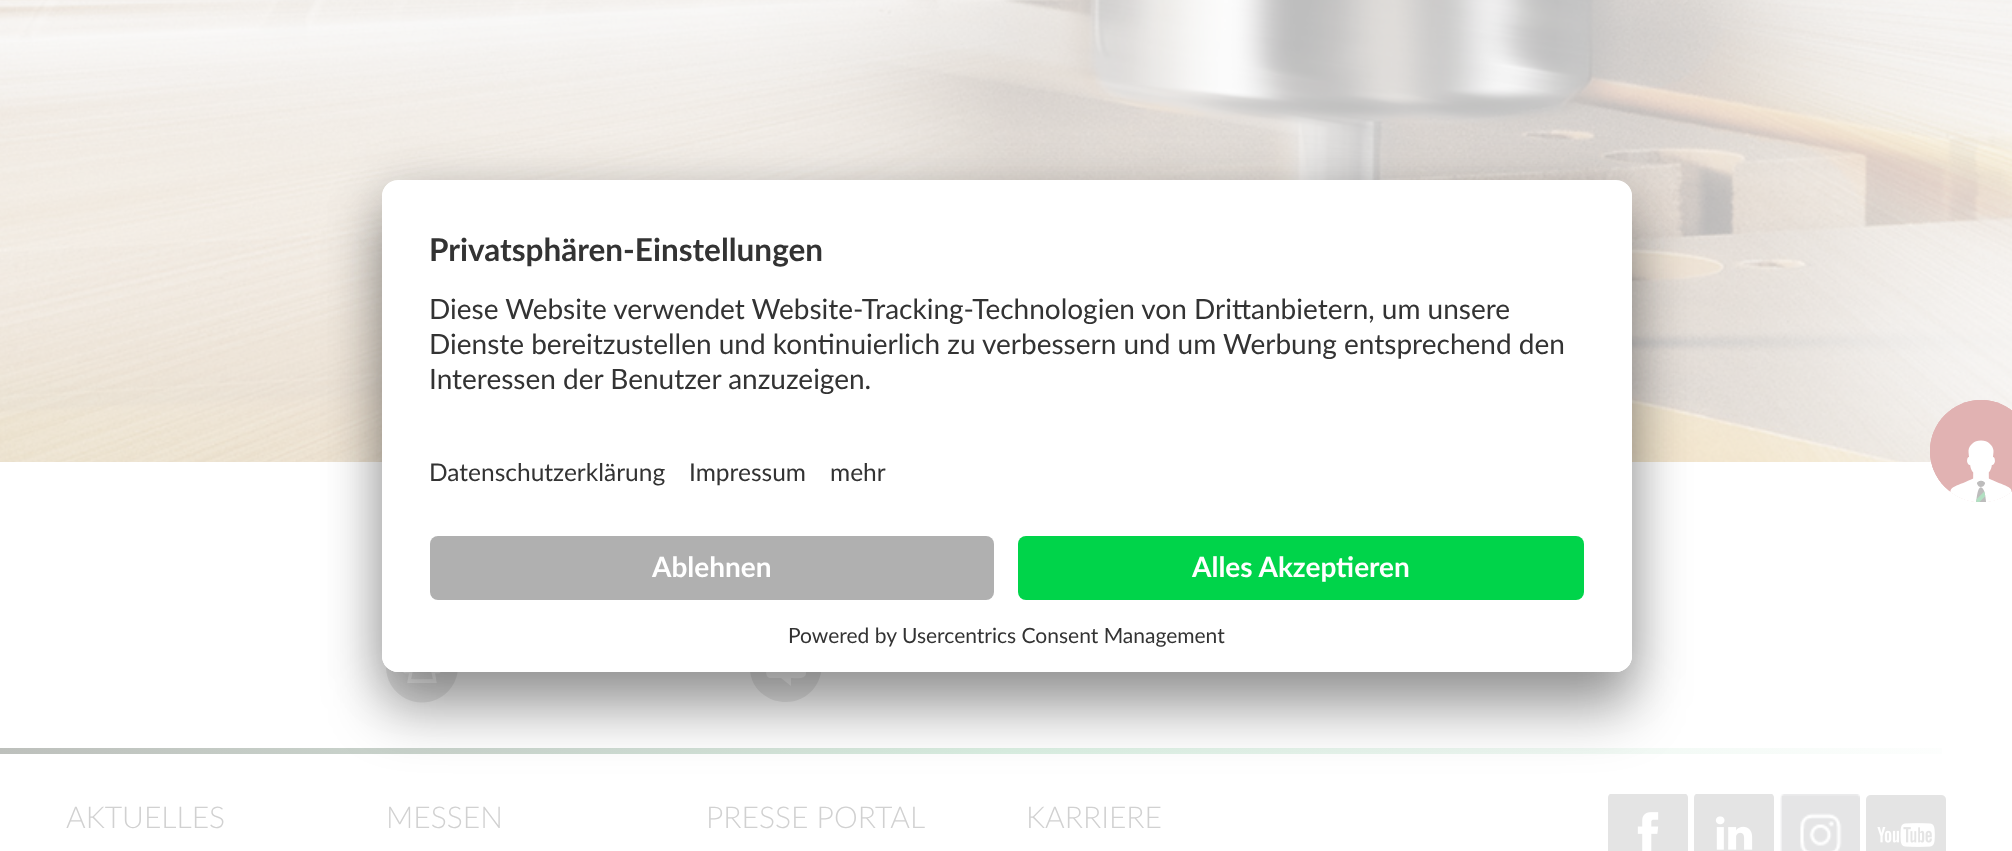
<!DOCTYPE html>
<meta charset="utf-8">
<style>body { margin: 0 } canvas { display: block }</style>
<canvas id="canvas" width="2012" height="851"></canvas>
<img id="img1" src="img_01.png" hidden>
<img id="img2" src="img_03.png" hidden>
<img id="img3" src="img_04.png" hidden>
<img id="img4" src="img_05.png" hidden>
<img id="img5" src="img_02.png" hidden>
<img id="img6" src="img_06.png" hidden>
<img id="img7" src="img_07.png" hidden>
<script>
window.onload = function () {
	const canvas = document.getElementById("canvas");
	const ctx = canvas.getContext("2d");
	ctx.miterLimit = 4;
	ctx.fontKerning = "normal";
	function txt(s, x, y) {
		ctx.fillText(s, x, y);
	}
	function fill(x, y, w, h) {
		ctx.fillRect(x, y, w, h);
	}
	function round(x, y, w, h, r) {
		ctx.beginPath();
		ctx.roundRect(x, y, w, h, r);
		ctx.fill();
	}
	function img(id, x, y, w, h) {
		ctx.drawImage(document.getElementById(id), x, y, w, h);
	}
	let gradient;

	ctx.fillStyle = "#FFFFFF";
	fill(0, 0, 2012, 851);
	img("img1", 0, 0, 2012, 462);
	img("img2", 386, 666, 72, 37);
	ctx.fillStyle = "#EBEBEB";
	ctx.beginPath();
	ctx.moveTo(786, 631);
	ctx.bezierCurveTo(752, 631, 737, 675, 764, 695);
	ctx.bezierCurveTo(771, 700, 778, 702, 786, 702);
	ctx.bezierCurveTo(820, 702, 835, 658, 808, 638);
	ctx.bezierCurveTo(801, 633, 794, 631, 786, 631);
	ctx.closePath();
	ctx.moveTo(806, 673);
	ctx.bezierCurveTo(806, 680, 795, 678, 791, 678);
	ctx.lineTo(791, 686);
	ctx.lineTo(781, 678);
	ctx.bezierCurveTo(766, 678, 766, 680, 766, 664);
	ctx.lineTo(766, 655);
	ctx.bezierCurveTo(767, 650, 772, 650, 776, 650);
	ctx.lineTo(786, 650);
	ctx.bezierCurveTo(810, 650, 806, 648, 806, 673);
	ctx.closePath();
	ctx.fill();
	gradient = ctx.createLinearGradient(0, 751, 2012, 751);
	gradient.addColorStop(0, "#BDC0BC");
	gradient.addColorStop(0.5, "#DBF0E3");
	gradient.addColorStop(1, "#FFFFFF");
	ctx.fillStyle = gradient;
	fill(0, 748, 1942, 6);
	img("img3", 1608, 794, 80, 57);
	img("img4", 1694, 794, 80, 57);
	ctx.fillStyle = "rgba(0, 0, 0, 0.3)";
	ctx.filter = "blur(28px)";
	ctx.beginPath();
	ctx.roundRect(382, 220, 1250, 492, 16);
	ctx.fill();
	ctx.filter = "none";
	ctx.fillStyle = "rgba(0, 0, 0, 0.22)";
	ctx.filter = "blur(26px)";
	ctx.beginPath();
	ctx.roundRect(382, 190, 1250, 492, 16);
	ctx.fill();
	ctx.filter = "none";
	ctx.fillStyle = "#FFFFFF";
	round(382, 180, 1250, 492, 16);
	ctx.save();
	ctx.beginPath();
	ctx.roundRect(382, 180, 1250, 492, 16);
	ctx.clip();
	ctx.beginPath();
	ctx.roundRect(382, 180, 1250, 340, [16, 16, 0, 0]);
	ctx.clip();
	fill(382, 182, 1250, 338);
	ctx.restore();
	ctx.beginPath();
	ctx.roundRect(382, 520, 1250, 152, [0, 0, 16, 16]);
	ctx.fill();
	ctx.fillStyle = "#B0B0B0";
	round(430, 536, 564, 64, 8);
	ctx.fillStyle = "#00D44A";
	round(1018, 536, 566, 64, 8);
	img("img5", 1930, 400, 82, 102);
	img("img6", 1780, 794, 80, 57);
	img("img7", 1866, 795, 80, 56);
	ctx.font = "bold 31.5px Lato";
	ctx.fillStyle = "#333333";
	txt("Privatsphären-Einstellungen", 429, 261);
	ctx.font = "28px Lato";
	txt("Diese Website verwendet Website-Tracking-Technologien von Drittanbietern, um unsere", 429, 319);
	txt("Dienste bereitzustellen und kontinuierlich zu verbessern und um Werbung entsprechend den", 429, 354);
	txt("Interessen der Benutzer anzuzeigen.", 429, 389);
	ctx.font = "24.5px Lato";
	txt("Datenschutzerklärung", 429, 481);
	txt("Impressum", 689, 481);
	txt("mehr", 830, 481);
	ctx.font = "bold 28px Lato";
	ctx.fillStyle = "#FFFFFF";
	txt("Ablehnen", 652, 577);
	txt("Alles Akzeptieren", 1192, 577);
	ctx.font = "21px Lato";
	ctx.fillStyle = "#333333";
	txt("Powered by", 788, 643);
	txt("Usercentrics Consent Management", 902, 643);
	ctx.font = "300 30px Lato";
	ctx.fillStyle = "#D1D1D1";
	txt("AKTUELLES", 66, 828);
	txt("MESSEN", 386, 828);
	txt("PRESSE PORTAL", 706, 828);
	txt("KARRIERE", 1026, 828);
};
</script>
